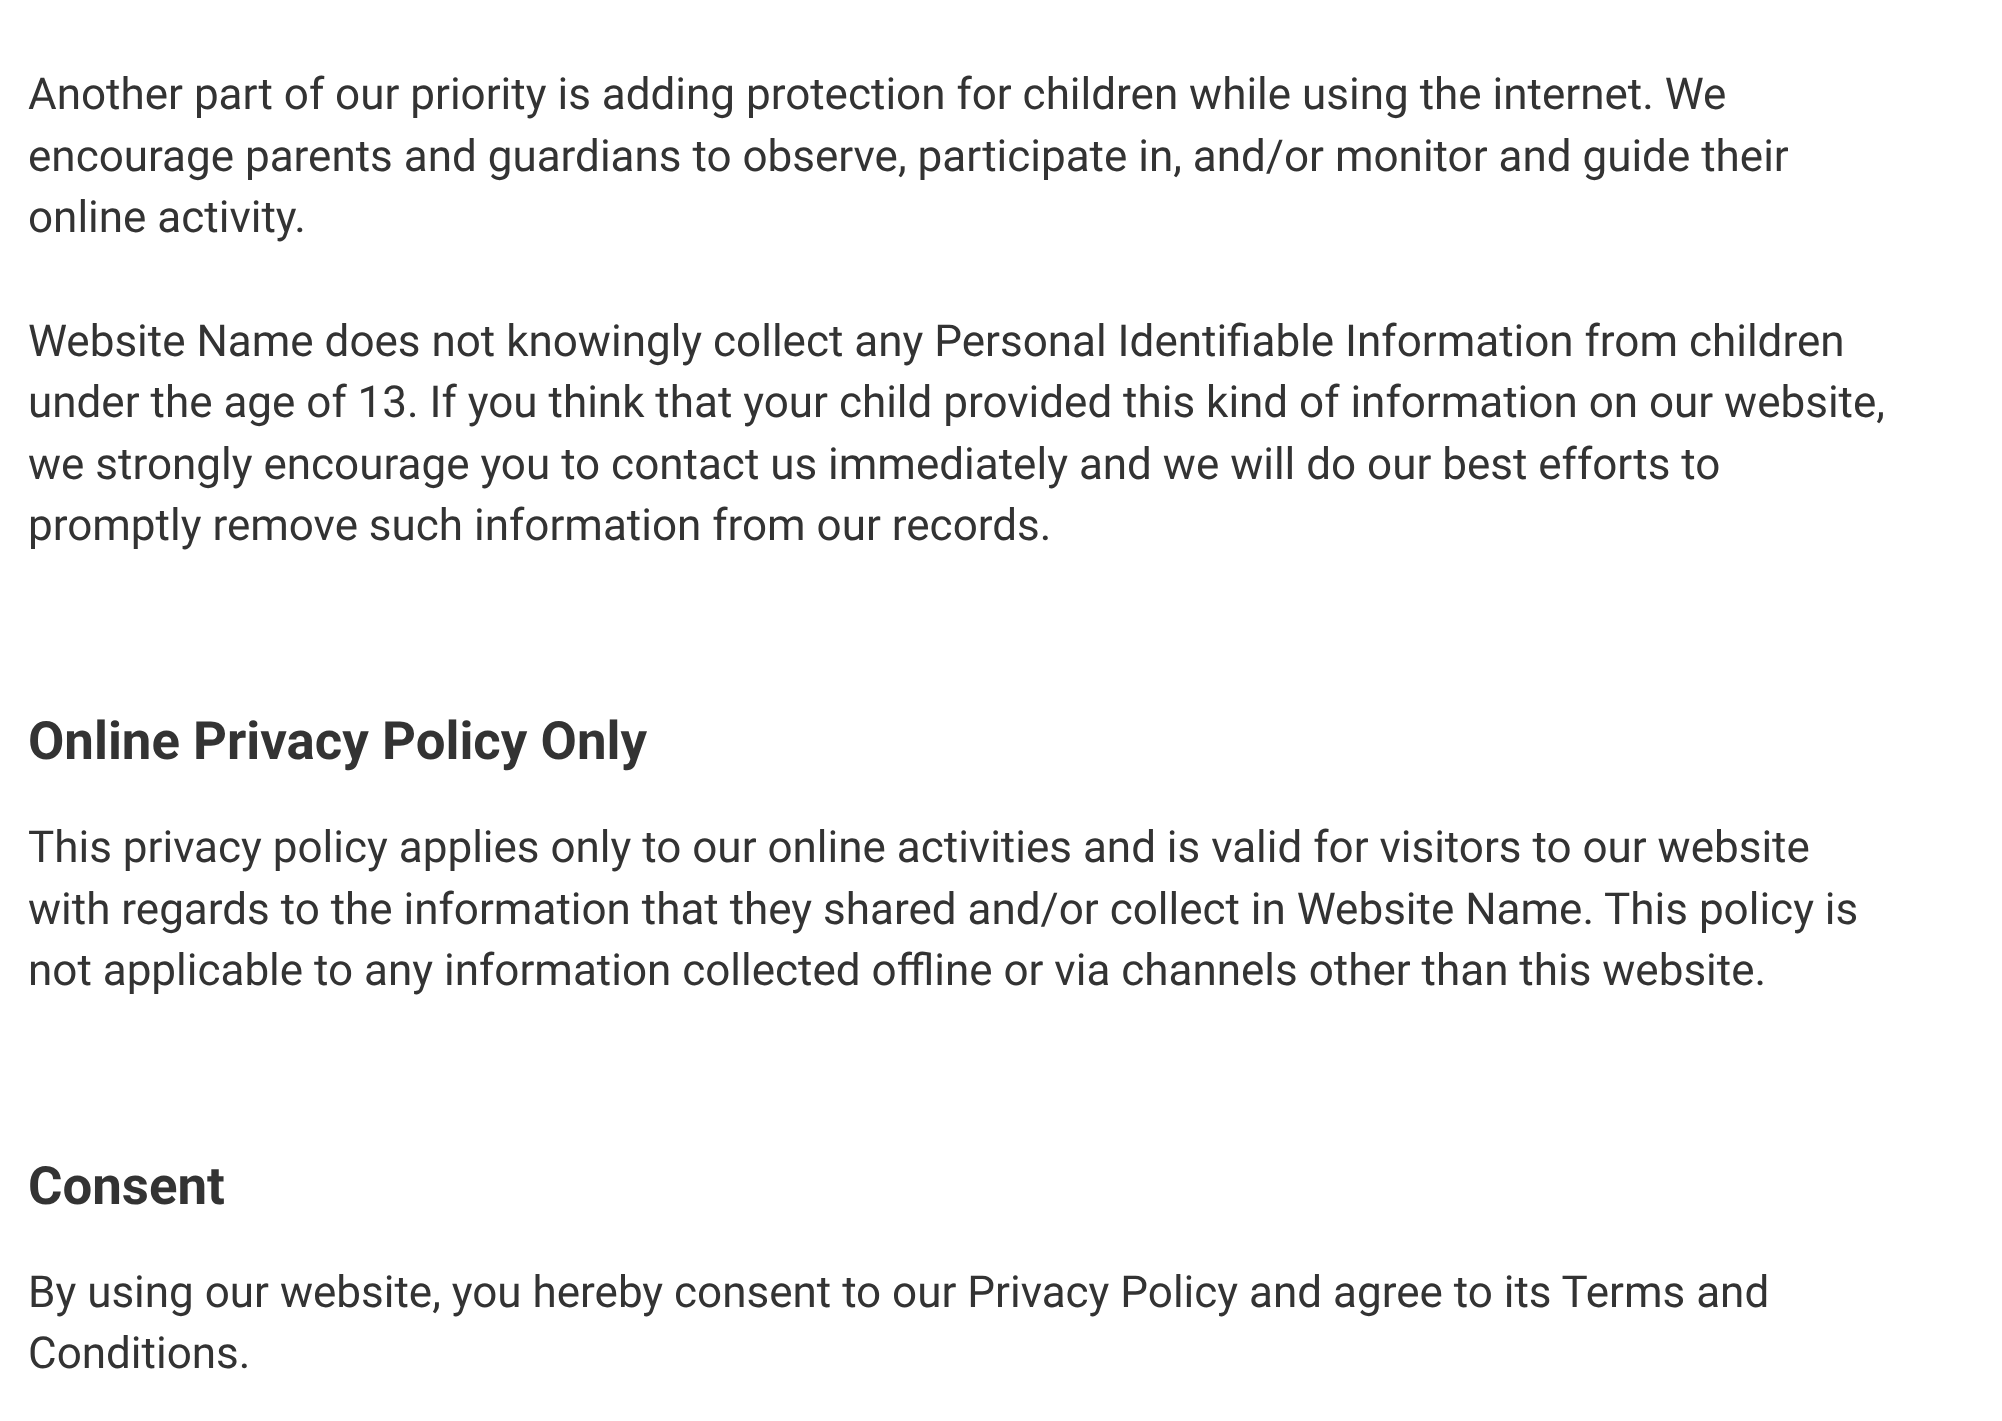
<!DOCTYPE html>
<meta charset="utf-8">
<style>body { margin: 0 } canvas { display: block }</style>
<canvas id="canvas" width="2002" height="1421"></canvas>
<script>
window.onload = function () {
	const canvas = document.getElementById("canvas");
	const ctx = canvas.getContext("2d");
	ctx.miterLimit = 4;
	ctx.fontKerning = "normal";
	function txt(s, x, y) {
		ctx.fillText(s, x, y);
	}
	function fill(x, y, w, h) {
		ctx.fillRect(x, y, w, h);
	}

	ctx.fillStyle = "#FFFFFF";
	fill(0, 0, 2002, 1421);
	ctx.font = "44px Roboto";
	ctx.fillStyle = "#333333";
	txt("Another part of our priority is adding protection for children while using the internet. We", 28, 109);
	txt("encourage parents and guardians to observe, participate in, and/or monitor and guide their", 28, 171);
	txt("online activity.", 28, 232);
	txt("Website Name does not knowingly collect any Personal Identifiable Information from children", 28, 356);
	txt("under the age of 13. If you think that your child provided this kind of information on our website,", 28, 417);
	txt("we strongly encourage you to contact us immediately and we will do our best efforts to", 28, 479);
	txt("promptly remove such information from our records.", 28, 540);
	ctx.font = "bold 52.75px Roboto";
	txt("Online Privacy Policy Only", 28, 759);
	ctx.font = "44px Roboto";
	txt("This privacy policy applies only to our online activities and is valid for visitors to our website", 28, 862);
	txt("with regards to the information that they shared and/or collect in Website Name. This policy is", 28, 924);
	txt("not applicable to any information collected offline or via channels other than this website.", 28, 985);
	ctx.font = "bold 52.75px Roboto";
	txt("Consent", 28, 1204);
	ctx.font = "44px Roboto";
	txt("By using our website, you hereby consent to our Privacy Policy and agree to its Terms and", 28, 1307);
	txt("Conditions.", 28, 1368);
};
</script>
